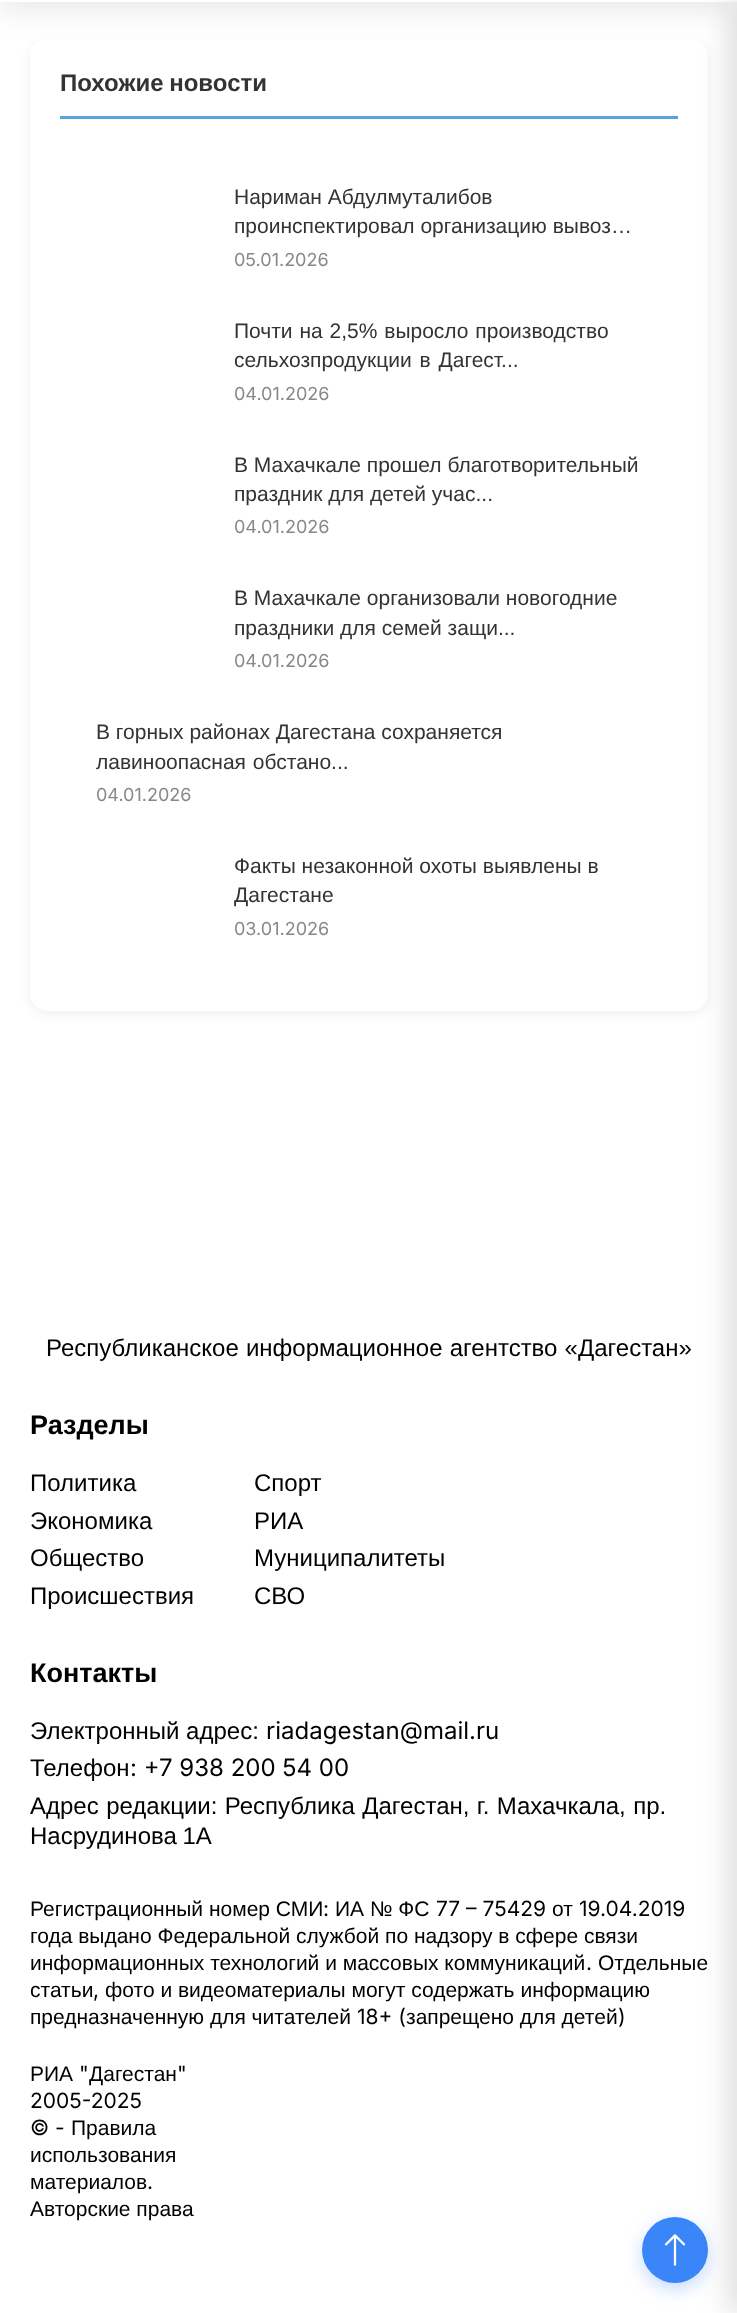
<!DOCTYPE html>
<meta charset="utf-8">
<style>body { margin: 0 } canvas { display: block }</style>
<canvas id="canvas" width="737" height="2313"></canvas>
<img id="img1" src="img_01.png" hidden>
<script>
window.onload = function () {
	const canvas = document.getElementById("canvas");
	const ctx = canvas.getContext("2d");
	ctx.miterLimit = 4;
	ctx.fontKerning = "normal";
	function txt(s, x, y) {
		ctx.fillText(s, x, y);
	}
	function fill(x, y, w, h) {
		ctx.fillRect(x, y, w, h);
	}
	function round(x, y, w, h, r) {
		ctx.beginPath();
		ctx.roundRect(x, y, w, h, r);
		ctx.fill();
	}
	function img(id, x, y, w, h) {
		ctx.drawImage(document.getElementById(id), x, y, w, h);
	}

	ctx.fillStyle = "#FFFFFF";
	fill(0, 0, 737, 2313);
	ctx.fillStyle = "rgba(0, 0, 0, 0.06)";
	ctx.filter = "blur(6px)";
	ctx.beginPath();
	ctx.roundRect(30, 42, 678, 972, 18);
	ctx.fill();
	ctx.filter = "none";
	ctx.fillStyle = "#FFFFFF";
	round(30, 39, 678, 972, 18);
	ctx.fillStyle = "rgba(0, 0, 0, 0.1)";
	ctx.filter = "blur(15px)";
	ctx.beginPath();
	ctx.rect(0, -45, 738, 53);
	ctx.fill();
	ctx.filter = "none";
	ctx.fillStyle = "#FFFFFF";
	fill(0, 0, 737, 2);
	ctx.fillStyle = "#57A4DB";
	fill(60, 116, 618, 3);
	ctx.fillStyle = "rgba(58, 134, 248, 0.3)";
	ctx.filter = "blur(9px)";
	ctx.beginPath();
	ctx.roundRect(642, 2223, 66, 66, 33);
	ctx.fill();
	ctx.filter = "none";
	ctx.fillStyle = "#3A86F8";
	ctx.beginPath();
	ctx.arc(675, 2250, 33, 0, Math.PI * 2);
	ctx.fill();
	img("img1", 664, 2234, 22, 32);
	ctx.fillStyle = "rgba(0, 0, 0, 0.15)";
	ctx.filter = "blur(15px)";
	ctx.beginPath();
	ctx.rect(731, 0, 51, 2313);
	ctx.fill();
	ctx.filter = "none";
	ctx.wordSpacing = "-1px";
	ctx.font = "bold 24px Liberation Sans";
	ctx.fillStyle = "#333333";
	txt("Похожие новости", 60, 91);
	ctx.wordSpacing = "0px";
	ctx.font = "21px Liberation Sans";
	txt("Нариман Абдулмуталибов", 234, 204);
	txt("проинспектировал организацию вывоз…", 234, 233);
	ctx.font = "18px Inter";
	ctx.fillStyle = "#888888";
	txt("05.01.2026", 234, 266);
	ctx.wordSpacing = "1px";
	ctx.font = "21px Liberation Sans";
	ctx.fillStyle = "#333333";
	txt("Почти на 2,5% выросло производство", 234, 338);
	ctx.wordSpacing = "2px";
	txt("сельхозпродукции в Дагест...", 234, 367);
	ctx.wordSpacing = "0px";
	ctx.font = "18px Inter";
	ctx.fillStyle = "#888888";
	txt("04.01.2026", 234, 400);
	ctx.font = "21px Liberation Sans";
	ctx.fillStyle = "#333333";
	txt("В Махачкале прошел благотворительный", 234, 472);
	txt("праздник для детей учас...", 234, 501);
	ctx.font = "18px Inter";
	ctx.fillStyle = "#888888";
	txt("04.01.2026", 234, 533);
	ctx.font = "21px Liberation Sans";
	ctx.fillStyle = "#333333";
	txt("В Махачкале организовали новогодние", 234, 605);
	txt("праздники для семей защи...", 234, 635);
	ctx.font = "18px Inter";
	ctx.fillStyle = "#888888";
	txt("04.01.2026", 234, 667);
	ctx.font = "21px Liberation Sans";
	ctx.fillStyle = "#333333";
	txt("В горных районах Дагестана сохраняется", 96, 739);
	ctx.wordSpacing = "1px";
	txt("лавиноопасная обстано...", 96, 769);
	ctx.wordSpacing = "0px";
	ctx.font = "18px Inter";
	ctx.fillStyle = "#888888";
	txt("04.01.2026", 96, 801);
	ctx.font = "21px Liberation Sans";
	ctx.fillStyle = "#333333";
	txt("Факты незаконной охоты выявлены в", 234, 873);
	txt("Дагестане", 234, 902);
	ctx.font = "18px Inter";
	ctx.fillStyle = "#888888";
	txt("03.01.2026", 234, 935);
	ctx.wordSpacing = "0.5px";
	ctx.font = "24px Liberation Sans";
	ctx.fillStyle = "#000000";
	txt("Республиканское информационное агентство «Дагестан»", 46, 1356);
	ctx.wordSpacing = "0px";
	ctx.font = "bold 27px Liberation Sans";
	txt("Разделы", 30, 1434);
	ctx.font = "24px Liberation Sans";
	txt("Политика", 30, 1491);
	txt("Экономика", 30, 1529);
	txt("Общество", 30, 1566);
	txt("Происшествия", 30, 1604);
	txt("Спорт", 254, 1491);
	txt("РИА", 254, 1529);
	txt("Муниципалитеты", 254, 1566);
	txt("СВО", 254, 1604);
	ctx.font = "bold 27px Liberation Sans";
	txt("Контакты", 30, 1682);
	ctx.font = "24px Liberation Sans";
	txt("Электронный адрес:", 30, 1739);
	ctx.font = "24px Inter";
	txt("riadagestan@mail.ru", 266, 1739);
	ctx.font = "24px Liberation Sans";
	txt("Телефон", 30, 1776);
	ctx.font = "24px Inter";
	txt(": +7 938 200 54 00", 130, 1776);
	ctx.wordSpacing = "0.75px";
	ctx.font = "24px Liberation Sans";
	txt("Адрес редакции: Республика Дагестан, г. Махачкала, пр.", 30, 1814);
	ctx.wordSpacing = "-1px";
	txt("Насрудинова 1А", 30, 1844);
	ctx.wordSpacing = "0px";
	ctx.font = "21px Liberation Sans";
	txt("Регистрационный номер СМИ", 30, 1916);
	ctx.font = "21px Inter";
	txt(":", 323, 1916);
	ctx.font = "21px Liberation Sans";
	txt("ИА № ФС", 335, 1916);
	ctx.font = "21px Inter";
	txt("77 – 75429", 436, 1916);
	ctx.font = "21px Liberation Sans";
	txt("от", 552, 1916);
	ctx.font = "21px Inter";
	txt("19.04.2019", 579, 1916);
	ctx.font = "21px Liberation Sans";
	txt("года выдано Федеральной службой по надзору в сфере связи", 30, 1943);
	txt("информационных технологий и массовых коммуникаций", 30, 1970);
	ctx.font = "21px Inter";
	txt(".", 586, 1970);
	ctx.font = "21px Liberation Sans";
	txt("Отдельные", 598, 1970);
	txt("статьи", 30, 1997);
	ctx.font = "21px Inter";
	txt(",", 93, 1997);
	ctx.font = "21px Liberation Sans";
	txt("фото и видеоматериалы могут содержать информацию", 105, 1997);
	txt("предназначенную для читателей", 30, 2024);
	ctx.font = "21px Inter";
	txt("18+ (", 357, 2024);
	ctx.font = "21px Liberation Sans";
	txt("запрещено для детей", 406, 2024);
	ctx.font = "21px Inter";
	txt(")", 618, 2024);
	ctx.font = "21px Liberation Sans";
	txt("РИА", 30, 2081);
	ctx.font = "21px Inter";
	txt("\"", 79, 2081);
	ctx.font = "21px Liberation Sans";
	txt("Дагестан", 89, 2081);
	ctx.font = "21px Inter";
	txt("\"", 177, 2081);
	txt("2005-2025", 30, 2108);
	txt("© -", 30, 2135);
	ctx.font = "21px Liberation Sans";
	txt("Правила", 71, 2135);
	txt("использования", 30, 2162);
	txt("материалов", 30, 2189);
	ctx.font = "21px Inter";
	txt(".", 147, 2189);
	ctx.font = "21px Liberation Sans";
	txt("Авторские права", 30, 2216);
};
</script>
